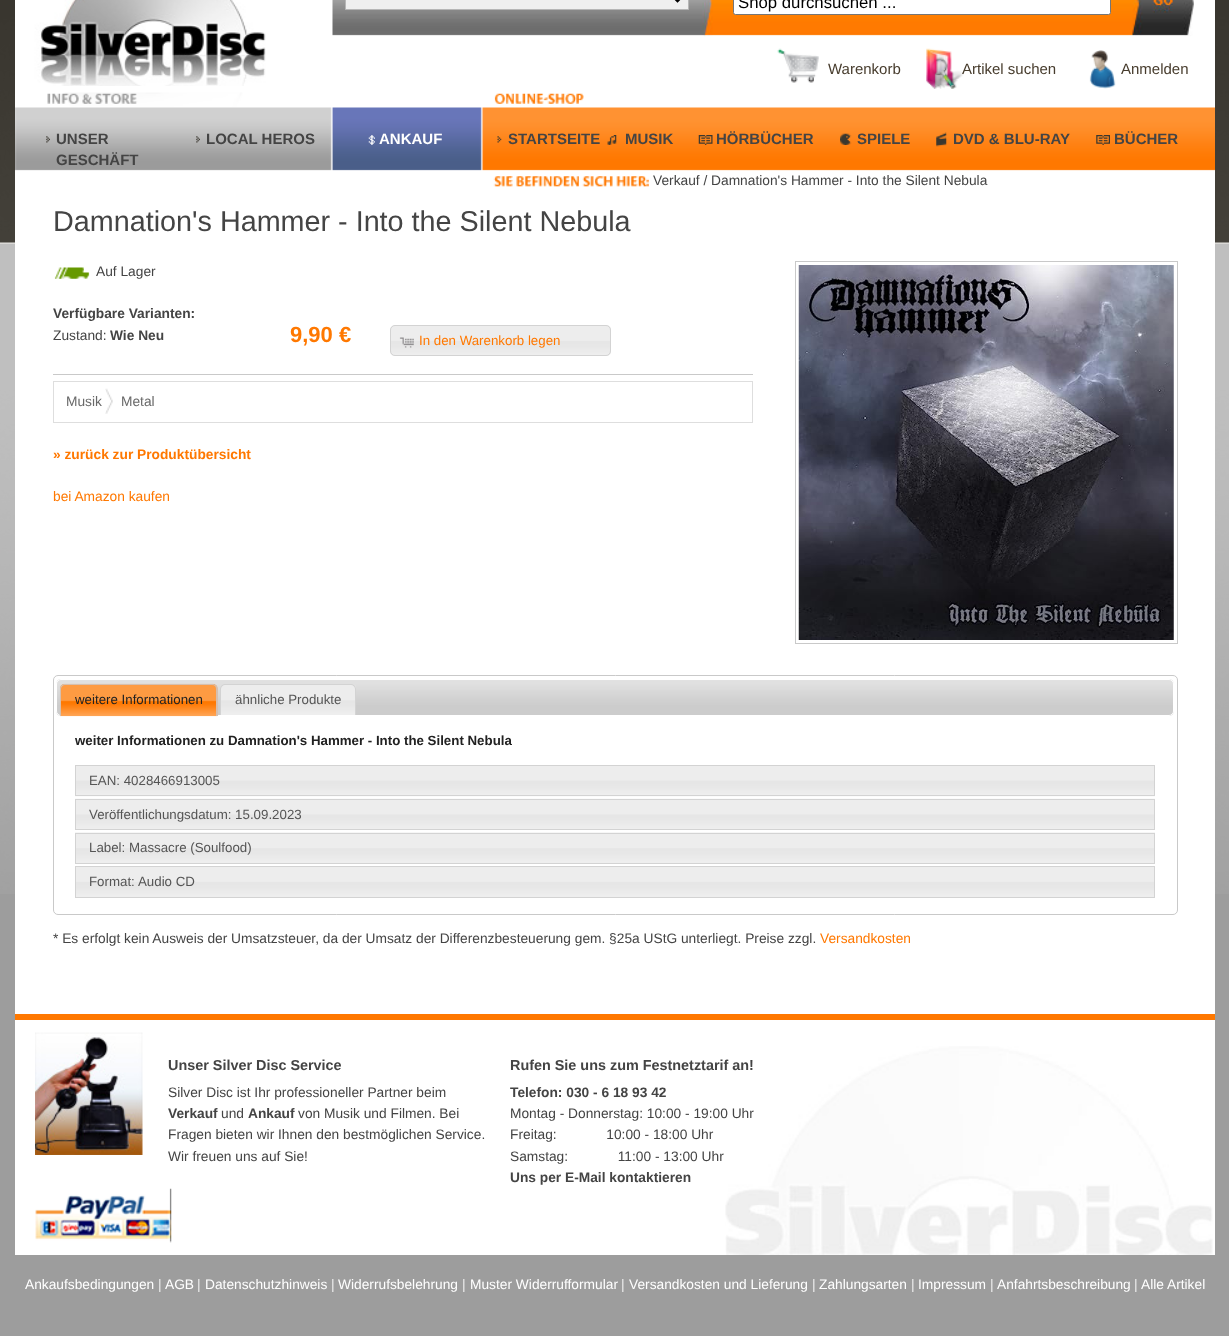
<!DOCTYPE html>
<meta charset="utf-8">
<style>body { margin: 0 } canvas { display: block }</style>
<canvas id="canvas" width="1229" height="1336"></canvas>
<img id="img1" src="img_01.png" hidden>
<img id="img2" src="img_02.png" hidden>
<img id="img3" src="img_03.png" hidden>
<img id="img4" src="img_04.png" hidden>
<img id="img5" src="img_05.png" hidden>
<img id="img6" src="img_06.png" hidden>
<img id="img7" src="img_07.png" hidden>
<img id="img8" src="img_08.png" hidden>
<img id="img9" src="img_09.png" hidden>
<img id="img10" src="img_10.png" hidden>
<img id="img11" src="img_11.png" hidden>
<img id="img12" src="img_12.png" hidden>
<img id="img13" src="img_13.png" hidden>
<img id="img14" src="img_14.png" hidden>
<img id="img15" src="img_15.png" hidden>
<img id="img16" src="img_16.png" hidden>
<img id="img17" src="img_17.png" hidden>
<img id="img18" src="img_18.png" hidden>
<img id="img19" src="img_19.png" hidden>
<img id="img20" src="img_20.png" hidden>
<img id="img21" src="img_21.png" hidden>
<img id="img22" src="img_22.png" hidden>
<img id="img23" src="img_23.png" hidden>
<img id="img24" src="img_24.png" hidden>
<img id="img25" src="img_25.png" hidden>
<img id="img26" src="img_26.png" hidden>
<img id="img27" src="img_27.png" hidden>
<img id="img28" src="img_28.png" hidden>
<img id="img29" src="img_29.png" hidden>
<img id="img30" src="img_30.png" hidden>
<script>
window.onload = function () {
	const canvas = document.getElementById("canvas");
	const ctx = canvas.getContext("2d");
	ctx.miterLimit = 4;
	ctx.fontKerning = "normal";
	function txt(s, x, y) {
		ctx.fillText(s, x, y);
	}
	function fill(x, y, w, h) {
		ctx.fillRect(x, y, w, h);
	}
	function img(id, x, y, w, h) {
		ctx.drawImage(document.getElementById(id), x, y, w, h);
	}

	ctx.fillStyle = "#9D9D9D";
	fill(0, 0, 1229, 1336);
	img("img1", 0, 0, 1229, 894);
	img("img2", 15, 0, 296, 86);
	ctx.fillStyle = "#FFFFFF";
	fill(311, 0, 904, 86);
	img("img3", 332, 0, 862, 37);
	ctx.fillStyle = "#EFEFEF";
	ctx.beginPath();
	ctx.rect(345.5, -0.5, 343, 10);
	ctx.fill();
	ctx.strokeStyle = "#B6B6B6";
	ctx.stroke();
	ctx.beginPath();
	ctx.moveTo(672.5, -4);
	ctx.lineTo(677.5, 1);
	ctx.lineTo(682.5, -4);
	ctx.strokeStyle = "#000000";
	ctx.lineWidth = 2.5;
	ctx.stroke();
	ctx.fillStyle = "#FFFFFF";
	ctx.beginPath();
	ctx.roundRect(733.5, -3.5, 377, 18, 2);
	ctx.fill();
	ctx.strokeStyle = "#767676";
	ctx.lineWidth = 1;
	ctx.stroke();
	img("img4", 777, 48, 42, 35);
	fill(15, 86, 1200, 928);
	img("img5", 926, 48, 38, 41);
	img("img6", 1089, 50, 27, 39);
	img("img7", 15, 92, 1200, 95);
	img("img8", 46, 136, 4, 7);
	img("img8", 196, 136, 4, 7);
	img("img9", 368, 135, 7, 10);
	img("img10", 497, 136, 5, 7);
	img("img11", 607, 135, 10, 10);
	img("img12", 698, 135, 15, 10);
	img("img13", 840, 133, 12, 12);
	img("img14", 936, 132, 11, 15);
	img("img15", 1096, 135, 14, 10);
	img("img16", 54, 267, 36, 12);
	ctx.fillStyle = "#C9C9C9";
	fill(53, 374, 700, 1);
	img("img17", 390, 325, 221, 31);
	ctx.beginPath();
	ctx.roundRect(390.5, 325.5, 220, 30, 4.5);
	ctx.strokeStyle = "#D3D3D3";
	ctx.stroke();
	img("img18", 399, 337, 15, 11);
	ctx.strokeStyle = "#DEDEDE";
	ctx.strokeRect(53.5, 381.5, 699, 41);
	img("img19", 105, 388, 8, 26);
	ctx.strokeStyle = "#C9C9C9";
	ctx.strokeRect(795.5, 261.5, 382, 382);
	img("img20", 798, 265, 376, 375);
	ctx.beginPath();
	ctx.roundRect(53.5, 675.5, 1124, 239, 4.5);
	ctx.stroke();
	img("img21", 56, 679, 1118, 37);
	ctx.beginPath();
	ctx.roundRect(56.5, 679.5, 1117, 36, 4.5);
	ctx.strokeStyle = "#FFFFFF";
	ctx.stroke();
	img("img22", 60, 683, 158, 34);
	ctx.fillStyle = "#D5BFAF";
	ctx.beginPath();
	ctx.moveTo(65, 684);
	ctx.lineTo(212, 684);
	ctx.bezierCurveTo(215, 684, 218, 686, 218, 689);
	ctx.lineTo(218, 716);
	ctx.lineTo(60, 716);
	ctx.lineTo(60, 689);
	ctx.bezierCurveTo(60, 686, 62, 684, 65, 684);
	ctx.closePath();
	ctx.moveTo(65, 685);
	ctx.lineTo(212, 685);
	ctx.bezierCurveTo(215, 685, 216, 687, 216, 689);
	ctx.lineTo(216, 716);
	ctx.lineTo(61, 716);
	ctx.lineTo(61, 689);
	ctx.bezierCurveTo(61, 687, 63, 685, 65, 685);
	ctx.closePath();
	ctx.fill("evenodd");
	img("img23", 220, 684, 136, 31);
	ctx.fillStyle = "#D3D3D3";
	ctx.beginPath();
	ctx.moveTo(225, 684);
	ctx.lineTo(351, 684);
	ctx.bezierCurveTo(354, 684, 356, 686, 356, 689);
	ctx.lineTo(356, 715);
	ctx.lineTo(220, 715);
	ctx.lineTo(220, 689);
	ctx.bezierCurveTo(220, 686, 222, 684, 225, 684);
	ctx.closePath();
	ctx.moveTo(225, 685);
	ctx.lineTo(351, 685);
	ctx.bezierCurveTo(353, 685, 355, 687, 355, 689);
	ctx.lineTo(355, 715);
	ctx.lineTo(221, 715);
	ctx.lineTo(221, 689);
	ctx.bezierCurveTo(221, 687, 223, 685, 225, 685);
	ctx.closePath();
	ctx.fill("evenodd");
	img("img24", 75, 766, 1080, 31);
	ctx.strokeStyle = "#D3D3D3";
	ctx.strokeRect(75.5, 765.5, 1079, 30);
	img("img25", 75, 798, 1080, 31);
	ctx.strokeRect(75.5, 799.5, 1079, 30);
	img("img26", 75, 832, 1080, 31);
	ctx.strokeRect(75.5, 833.5, 1079, 30);
	img("img27", 76, 867, 1078, 30);
	ctx.strokeRect(75.5, 866.5, 1079, 31);
	ctx.fillStyle = "#FF7800";
	fill(15, 1014, 1200, 6);
	ctx.fillStyle = "#FFFFFF";
	fill(15, 1020, 1200, 235);
	img("img28", 725, 1046, 488, 209);
	img("img29", 35, 1032, 108, 123);
	img("img30", 35, 1188, 137, 55);
	ctx.font = "16.75px Liberation Sans";
	ctx.fillStyle = "#000000";
	txt("Shop durchsuchen ...", 738, 8);
	ctx.font = "15px Liberation Sans";
	ctx.fillStyle = "#473C2D";
	txt("Warenkorb", 828, 74);
	txt("Artikel suchen", 962, 74);
	txt("Anmelden", 1121, 74);
	ctx.font = "13.75px Liberation Sans";
	ctx.fillStyle = "#444444";
	txt("Verkauf / Damnation's Hammer - Into the Silent Nebula", 653, 185);
	ctx.font = "bold 15px Liberation Sans";
	txt("UNSER", 56, 144);
	txt("GESCHÄFT", 56, 165);
	txt("LOCAL HEROS", 206, 144);
	ctx.fillStyle = "#FFFFFF";
	txt("ANKAUF", 379, 144);
	ctx.fillStyle = "#444444";
	txt("STARTSEITE", 508, 144);
	txt("MUSIK", 625, 144);
	txt("HÖRBÜCHER", 716, 144);
	txt("SPIELE", 857, 144);
	txt("DVD & BLU-RAY", 953, 144);
	txt("BÜCHER", 1114, 144);
	ctx.font = "28.75px Liberation Sans";
	txt("Damnation's Hammer - Into the Silent Nebula", 53, 231);
	ctx.font = "13.75px Liberation Sans";
	txt("Auf Lager", 96, 276);
	ctx.font = "bold 13.75px Liberation Sans";
	txt("Verfügbare Varianten:", 53, 318);
	ctx.font = "13.75px Liberation Sans";
	txt("Zustand:", 53, 340);
	ctx.font = "bold 13.75px Liberation Sans";
	txt("Wie Neu", 110, 340);
	ctx.font = "bold 22px Liberation Sans";
	ctx.fillStyle = "#FF7800";
	txt("9,90 €", 290, 342);
	ctx.font = "13.3px Liberation Sans";
	txt("In den Warenkorb legen", 419, 345);
	ctx.font = "13.75px Liberation Sans";
	ctx.fillStyle = "#696969";
	txt("Musik", 66, 406);
	txt("Metal", 121, 406);
	ctx.font = "bold 13.75px Liberation Sans";
	ctx.fillStyle = "#FF7800";
	txt("» zurück zur Produktübersicht", 53, 459);
	ctx.font = "13.75px Liberation Sans";
	txt("bei Amazon kaufen", 53, 501);
	ctx.font = "13.3px Liberation Sans";
	ctx.fillStyle = "#222222";
	txt("weitere Informationen", 75, 704);
	ctx.fillStyle = "#555555";
	txt("ähnliche Produkte", 235, 704);
	ctx.font = "bold 13.3px Liberation Sans";
	ctx.fillStyle = "#222222";
	txt("weiter Informationen zu Damnation's Hammer - Into the Silent Nebula", 75, 745);
	ctx.font = "13.3px Liberation Sans";
	ctx.fillStyle = "#555555";
	txt("EAN: 4028466913005", 89, 785);
	txt("Veröffentlichungsdatum: 15.09.2023", 89, 819);
	txt("Label: Massacre (Soulfood)", 89, 852);
	txt("Format:", 89, 886);
	txt("Audio CD", 138, 886);
	ctx.font = "13.75px Liberation Sans";
	ctx.fillStyle = "#444444";
	txt("* Es erfolgt kein Ausweis der Umsatzsteuer, da der Umsatz der Differenzbesteuerung gem. §25a UStG unterliegt. Preise zzgl.", 53, 943);
	ctx.fillStyle = "#FF7800";
	txt("Versandkosten", 820, 943);
	ctx.font = "bold 14.4px Liberation Sans";
	ctx.fillStyle = "#444444";
	txt("Unser Silver Disc Service", 168, 1070);
	ctx.font = "13.75px Liberation Sans";
	txt("Silver Disc ist Ihr professioneller Partner beim", 168, 1097);
	ctx.font = "bold 13.75px Liberation Sans";
	txt("Verkauf", 168, 1118);
	ctx.font = "13.75px Liberation Sans";
	txt("und", 221, 1118);
	ctx.font = "bold 13.75px Liberation Sans";
	txt("Ankauf", 248, 1118);
	ctx.font = "13.75px Liberation Sans";
	txt("von Musik und Filmen. Bei", 298, 1118);
	txt("Fragen bieten wir Ihnen den bestmöglichen Service.", 168, 1139);
	txt("Wir freuen uns auf Sie!", 168, 1161);
	ctx.font = "bold 14.4px Liberation Sans";
	txt("Rufen Sie uns zum Festnetztarif an!", 510, 1070);
	ctx.font = "bold 13.75px Liberation Sans";
	txt("Telefon: 030 - 6 18 93 42", 510, 1097);
	ctx.font = "13.75px Liberation Sans";
	txt("Montag - Donnerstag: 10:00 - 19:00 Uhr", 510, 1118);
	txt("Freitag:             10:00 - 18:00 Uhr", 510, 1139);
	txt("Samstag:             11:00 - 13:00 Uhr", 510, 1161);
	ctx.font = "bold 13.75px Liberation Sans";
	txt("Uns per E-Mail kontaktieren", 510, 1182);
	ctx.font = "13.75px Liberation Sans";
	ctx.fillStyle = "#FFFFFF";
	txt("Ankaufsbedingungen", 25, 1289);
	ctx.fillStyle = "#EEEEEE";
	txt("|", 158, 1289);
	ctx.fillStyle = "#FFFFFF";
	txt("AGB", 165, 1289);
	ctx.fillStyle = "#EEEEEE";
	txt("|", 197, 1289);
	ctx.fillStyle = "#FFFFFF";
	txt("Datenschutzhinweis", 205, 1289);
	ctx.fillStyle = "#EEEEEE";
	txt("|", 331, 1289);
	ctx.fillStyle = "#FFFFFF";
	txt("Widerrufsbelehrung", 338, 1289);
	ctx.fillStyle = "#EEEEEE";
	txt("|", 462, 1289);
	ctx.fillStyle = "#FFFFFF";
	txt("Muster Widerrufformular", 470, 1289);
	ctx.fillStyle = "#EEEEEE";
	txt("|", 621, 1289);
	ctx.fillStyle = "#FFFFFF";
	txt("Versandkosten und Lieferung", 629, 1289);
	ctx.fillStyle = "#EEEEEE";
	txt("|", 812, 1289);
	ctx.fillStyle = "#FFFFFF";
	txt("Zahlungsarten", 819, 1289);
	ctx.fillStyle = "#EEEEEE";
	txt("|", 911, 1289);
	ctx.fillStyle = "#FFFFFF";
	txt("Impressum", 918, 1289);
	ctx.fillStyle = "#EEEEEE";
	txt("|", 990, 1289);
	ctx.fillStyle = "#FFFFFF";
	txt("Anfahrtsbeschreibung", 997, 1289);
	ctx.fillStyle = "#EEEEEE";
	txt("|", 1134, 1289);
	ctx.fillStyle = "#FFFFFF";
	txt("Alle Artikel", 1141, 1289);
};
</script>
